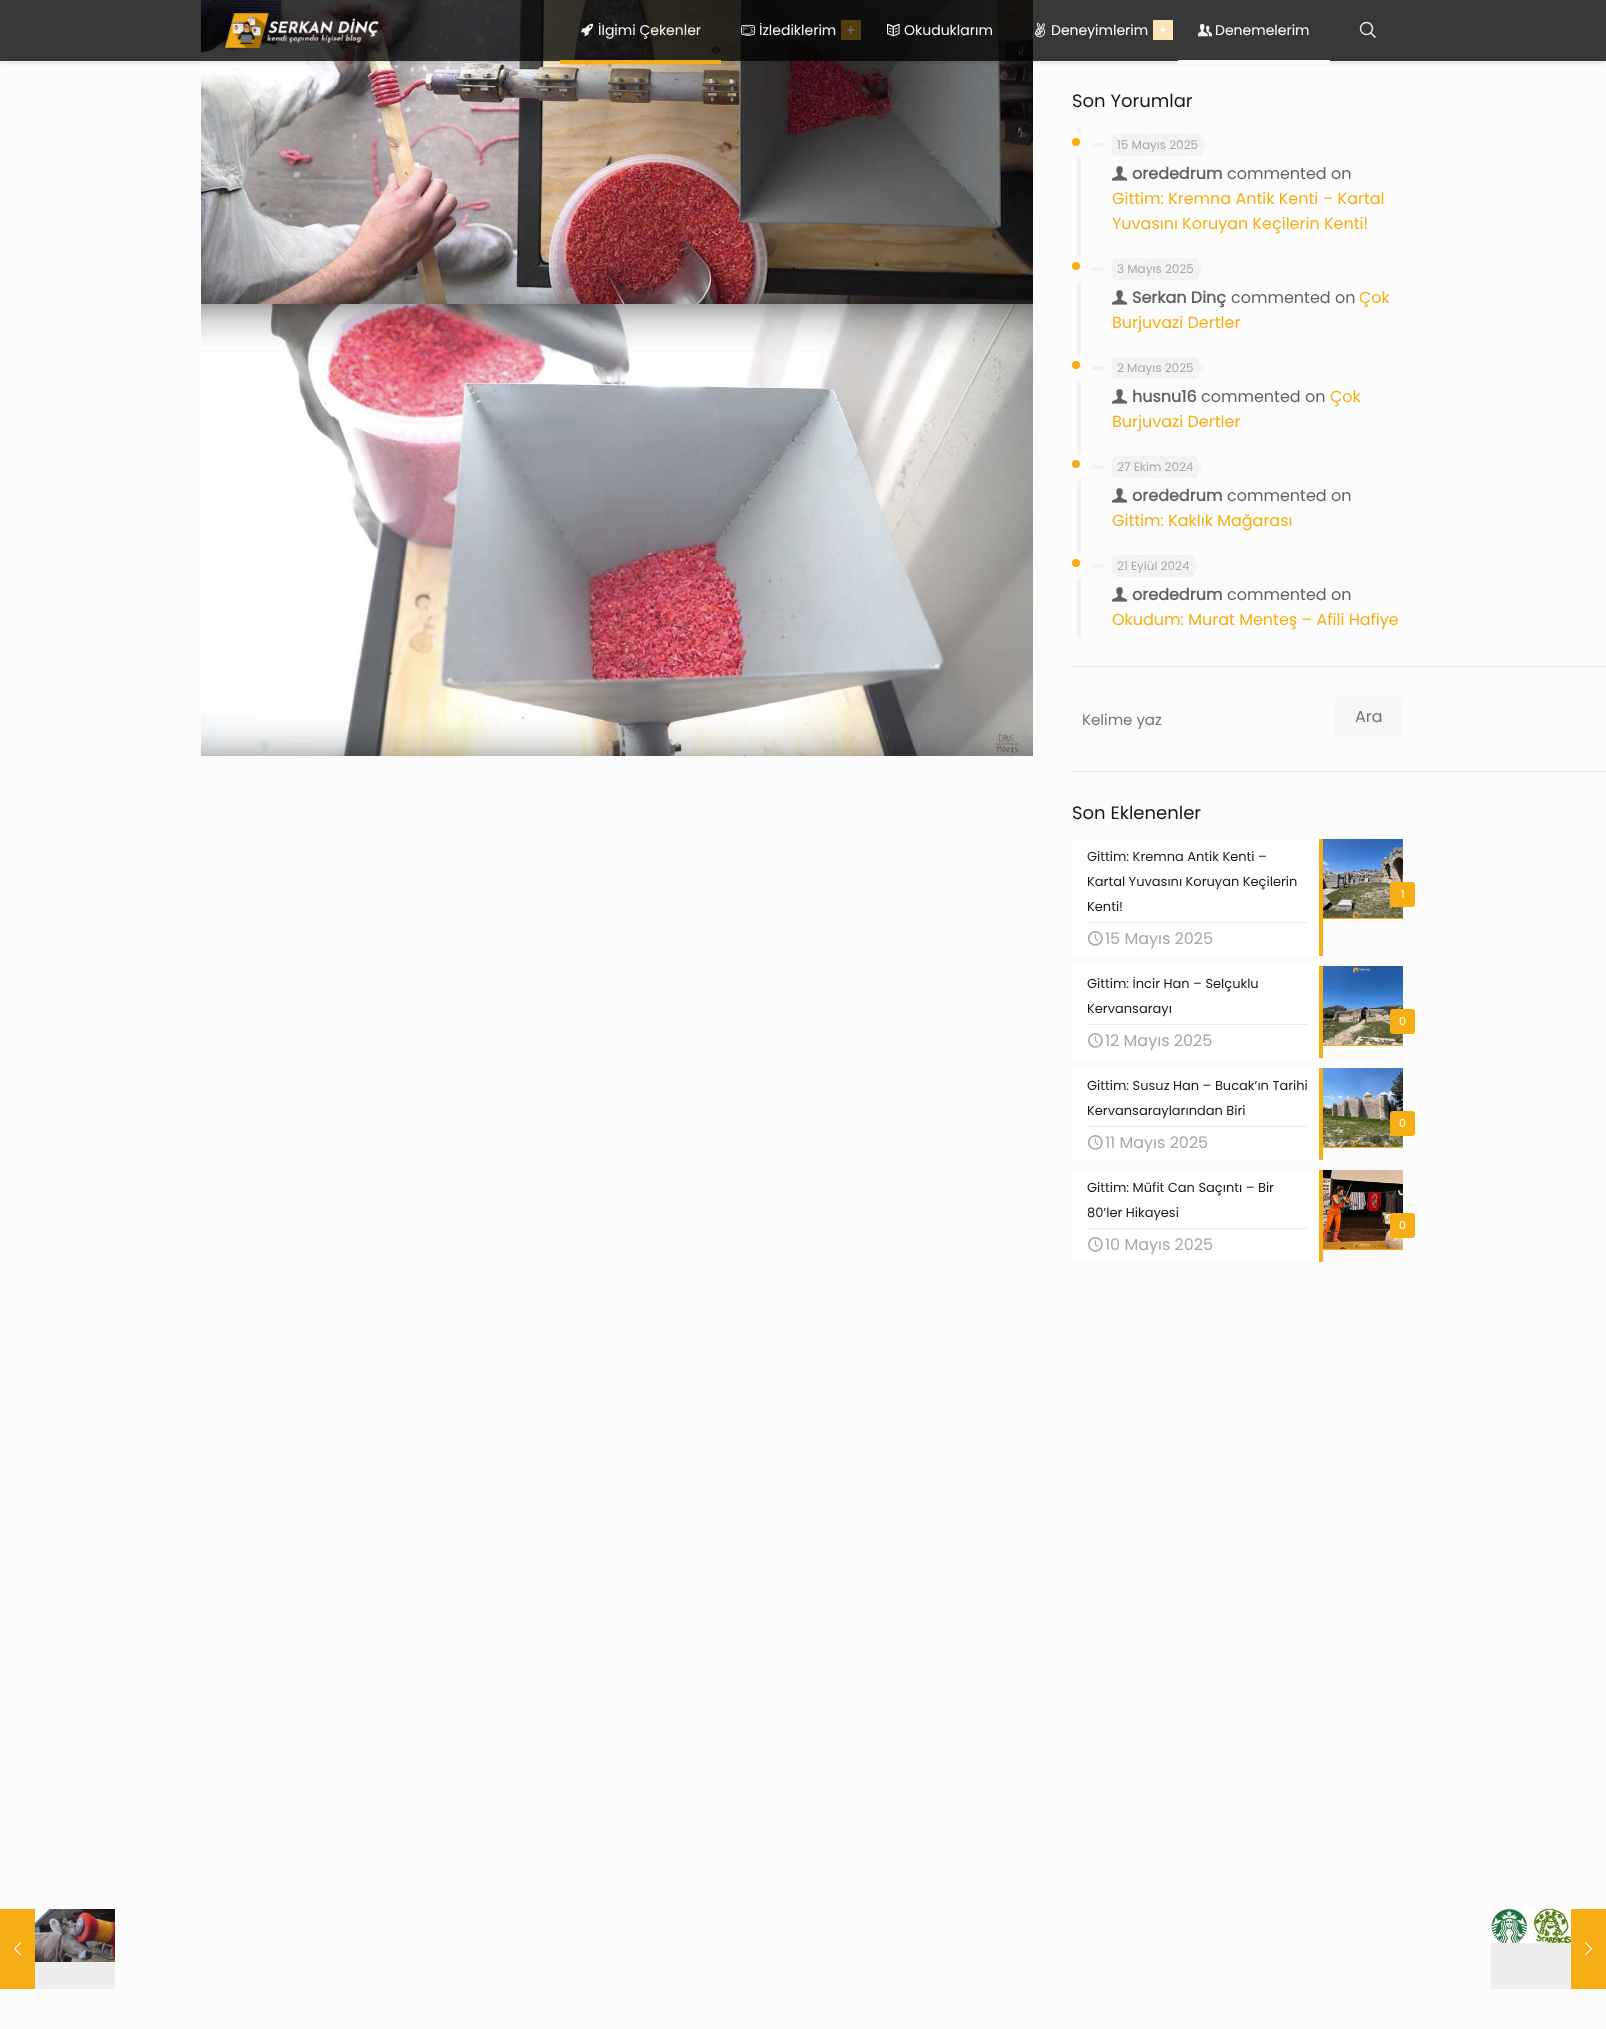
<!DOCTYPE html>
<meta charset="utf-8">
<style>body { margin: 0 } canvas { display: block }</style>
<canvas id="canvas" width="1606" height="2029"></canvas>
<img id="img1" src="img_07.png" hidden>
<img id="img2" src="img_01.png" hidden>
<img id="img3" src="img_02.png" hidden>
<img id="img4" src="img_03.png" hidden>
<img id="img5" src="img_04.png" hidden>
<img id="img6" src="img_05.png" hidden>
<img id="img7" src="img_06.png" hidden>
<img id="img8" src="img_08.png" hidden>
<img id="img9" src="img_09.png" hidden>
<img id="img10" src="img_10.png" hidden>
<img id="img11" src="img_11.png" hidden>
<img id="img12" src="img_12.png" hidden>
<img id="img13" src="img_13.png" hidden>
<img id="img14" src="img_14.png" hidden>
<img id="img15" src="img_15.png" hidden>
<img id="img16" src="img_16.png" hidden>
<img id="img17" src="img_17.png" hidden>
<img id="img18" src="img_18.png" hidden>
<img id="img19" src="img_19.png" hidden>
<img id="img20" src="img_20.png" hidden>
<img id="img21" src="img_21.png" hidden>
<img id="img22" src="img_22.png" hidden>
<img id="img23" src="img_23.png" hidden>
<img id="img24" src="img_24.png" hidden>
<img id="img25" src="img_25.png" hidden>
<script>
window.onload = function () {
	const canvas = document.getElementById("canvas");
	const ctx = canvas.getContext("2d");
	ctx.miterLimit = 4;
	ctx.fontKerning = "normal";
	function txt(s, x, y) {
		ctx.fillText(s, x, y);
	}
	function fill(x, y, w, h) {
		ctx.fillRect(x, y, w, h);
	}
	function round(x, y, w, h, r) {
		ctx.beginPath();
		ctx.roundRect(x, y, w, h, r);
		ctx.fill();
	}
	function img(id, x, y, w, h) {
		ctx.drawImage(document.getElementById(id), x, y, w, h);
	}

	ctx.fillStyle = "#FCFCFC";
	fill(0, 0, 1606, 2029);
	img("img1", 201, 0, 832, 304);
	ctx.save();
	ctx.beginPath();
	ctx.rect(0, 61, 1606, 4);
	ctx.clip();
	ctx.fillStyle = "rgba(0, 0, 0, 0.1)";
	ctx.filter = "blur(2.5px)";
	ctx.beginPath();
	ctx.rect(0, 2, 1606, 61);
	ctx.fill();
	ctx.filter = "none";
	ctx.restore();
	ctx.fillStyle = "rgba(0, 0, 0, 0.78)";
	fill(0, 0, 1606, 61);
	img("img2", 225, 13, 154, 35);
	img("img3", 581, 23, 12, 13);
	ctx.fillStyle = "rgba(247, 174, 20, 0.97)";
	fill(560, 60, 161, 4);
	img("img4", 741, 24, 14, 12);
	ctx.fillStyle = "#523D10";
	fill(841, 20, 20, 20);
	img("img5", 887, 23, 13, 14);
	img("img6", 1035, 23, 10, 15);
	ctx.fillStyle = "#FBE5B8";
	fill(1153, 20, 20, 20);
	img("img7", 1198, 24, 14, 13);
	ctx.fillStyle = "#FCFCFC";
	fill(1178, 60, 152, 4);
	ctx.beginPath();
	ctx.arc(1366.5, 28.5, 6, 0, Math.PI * 2);
	ctx.strokeStyle = "#EBEBEB";
	ctx.lineWidth = 1.5;
	ctx.stroke();
	ctx.beginPath();
	ctx.moveTo(1370.5, 32.5);
	ctx.lineTo(1375.5, 37.5);
	ctx.strokeStyle = "rgba(255, 255, 255, 0.9)";
	ctx.stroke();
	img("img8", 201, 304, 832, 452);
	img("img9", 1077, 127, 27, 124);
	ctx.fillStyle = "#F7AE14";
	ctx.beginPath();
	ctx.arc(1076, 142, 4, 0, Math.PI * 2);
	ctx.fill();
	ctx.fillStyle = "#F4F4F4";
	round(1112, 134, 91, 22, 4);
	img("img10", 1112, 134, 91, 22);
	ctx.beginPath();
	ctx.moveTo(1203, 150);
	ctx.lineTo(1203, 140);
	ctx.lineTo(1208, 145);
	ctx.closePath();
	ctx.fill();
	img("img11", 1112, 166, 16, 15);
	img("img12", 1077, 251, 27, 99);
	ctx.fillStyle = "#F7AE14";
	ctx.beginPath();
	ctx.arc(1076, 266, 4, 0, Math.PI * 2);
	ctx.fill();
	ctx.fillStyle = "#F4F4F4";
	round(1112, 258, 87, 22, 4);
	img("img13", 1112, 258, 87, 22);
	ctx.beginPath();
	ctx.moveTo(1199, 274);
	ctx.lineTo(1199, 264);
	ctx.lineTo(1204, 269);
	ctx.closePath();
	ctx.fill();
	img("img11", 1112, 290, 16, 15);
	img("img12", 1077, 350, 27, 99);
	ctx.fillStyle = "#F7AE14";
	ctx.beginPath();
	ctx.arc(1076, 365, 4, 0, Math.PI * 2);
	ctx.fill();
	ctx.fillStyle = "#F4F4F4";
	round(1112, 357, 87, 22, 4);
	img("img13", 1112, 357, 87, 22);
	ctx.beginPath();
	ctx.moveTo(1199, 373);
	ctx.lineTo(1199, 363);
	ctx.lineTo(1204, 368);
	ctx.closePath();
	ctx.fill();
	img("img11", 1112, 389, 16, 15);
	img("img12", 1077, 449, 27, 99);
	ctx.fillStyle = "#F7AE14";
	ctx.beginPath();
	ctx.arc(1076, 464, 4, 0, Math.PI * 2);
	ctx.fill();
	ctx.fillStyle = "#F4F4F4";
	round(1112, 456, 86, 22, 4);
	img("img14", 1112, 456, 86, 22);
	ctx.beginPath();
	ctx.moveTo(1198, 472);
	ctx.lineTo(1198, 462);
	ctx.lineTo(1203, 467);
	ctx.closePath();
	ctx.fill();
	img("img11", 1112, 488, 16, 15);
	img("img15", 1077, 548, 27, 89);
	ctx.fillStyle = "#F7AE14";
	ctx.beginPath();
	ctx.arc(1076, 563, 4, 0, Math.PI * 2);
	ctx.fill();
	ctx.fillStyle = "#F4F4F4";
	round(1112, 555, 83, 22, 4);
	img("img16", 1112, 555, 83, 22);
	ctx.beginPath();
	ctx.moveTo(1195, 571);
	ctx.lineTo(1195, 561);
	ctx.lineTo(1200, 566);
	ctx.closePath();
	ctx.fill();
	img("img11", 1112, 587, 16, 15);
	ctx.fillStyle = "#E8E8E8";
	fill(1072, 666, 534, 1);
	ctx.fillStyle = "#F7F7F7";
	fill(1335, 697, 68, 39);
	ctx.fillStyle = "#E8E8E8";
	fill(1072, 771, 534, 1);
	ctx.fillStyle = "#FFFFFF";
	fill(1072, 839, 247, 117);
	ctx.fillStyle = "#EBEBEB";
	fill(1087, 922, 221, 1);
	ctx.fillStyle = "#F7AE14";
	fill(1319, 839, 4, 117);
	img("img17", 1088, 931, 15, 15);
	img("img18", 1323, 839, 80, 80);
	round(1390, 882, 25, 25, 3);
	ctx.fillStyle = "#FFFFFF";
	fill(1072, 966, 247, 92);
	ctx.fillStyle = "#EBEBEB";
	fill(1087, 1024, 221, 1);
	ctx.fillStyle = "#F7AE14";
	fill(1319, 966, 4, 92);
	img("img17", 1088, 1033, 15, 15);
	img("img19", 1323, 966, 80, 80);
	round(1390, 1009, 25, 25, 3);
	ctx.fillStyle = "#FFFFFF";
	fill(1072, 1068, 247, 92);
	ctx.fillStyle = "#EBEBEB";
	fill(1087, 1126, 221, 1);
	ctx.fillStyle = "#F7AE14";
	fill(1319, 1068, 4, 92);
	img("img17", 1088, 1135, 15, 15);
	img("img20", 1323, 1068, 80, 80);
	round(1390, 1111, 25, 25, 3);
	ctx.fillStyle = "#FFFFFF";
	fill(1072, 1170, 247, 92);
	ctx.fillStyle = "#EBEBEB";
	fill(1087, 1228, 221, 1);
	ctx.fillStyle = "#F7AE14";
	fill(1319, 1170, 4, 92);
	img("img17", 1088, 1237, 15, 15);
	img("img21", 1323, 1170, 80, 80);
	round(1390, 1213, 25, 25, 3);
	fill(0, 1909, 35, 80);
	img("img22", 14, 1942, 7, 14);
	ctx.fillStyle = "#EEEEEE";
	fill(35, 1962, 80, 27);
	img("img23", 35, 1909, 80, 53);
	fill(1491, 1909, 80, 80);
	img("img24", 1491, 1909, 80, 34);
	ctx.fillStyle = "#F7AE14";
	fill(1571, 1909, 35, 80);
	img("img25", 1585, 1942, 7, 14);
	ctx.font = "14px Poppins";
	ctx.fillStyle = "#F8F8F8";
	txt("İlgimi Çekenler", 598, 35);
	txt("İzlediklerim", 759, 35);
	ctx.fillStyle = "#757575";
	txt("+", 846, 35);
	ctx.fillStyle = "#F8F8F8";
	txt("Okuduklarım", 904, 35);
	ctx.fillStyle = "#FFFFFF";
	txt("Deneyimlerim", 1051, 35);
	txt("+", 1158, 35);
	txt("Denemelerim", 1215, 35);
	ctx.font = "18px Poppins";
	ctx.fillStyle = "#161922";
	txt("Son Yorumlar", 1072, 107);
	ctx.font = "12px Poppins";
	ctx.fillStyle = "#A8A8A8";
	txt("15 Mayıs 2025", 1117, 149);
	ctx.font = "bold 16px Poppins";
	ctx.fillStyle = "#626262";
	txt("orededrum", 1132, 179);
	ctx.font = "16px Poppins";
	txt("commented on", 1227, 179);
	ctx.fillStyle = "#F7AE14";
	txt("Gittim: Kremna Antik Kenti – Kartal", 1112, 204);
	txt("Yuvasını Koruyan Keçilerin Kenti!", 1112, 229);
	ctx.font = "12px Poppins";
	ctx.fillStyle = "#A8A8A8";
	txt("3 Mayıs 2025", 1117, 273);
	ctx.font = "bold 16px Poppins";
	ctx.fillStyle = "#626262";
	txt("Serkan Dinç", 1132, 303);
	ctx.font = "16px Poppins";
	txt("commented on", 1231, 303);
	ctx.fillStyle = "#F7AE14";
	txt("Çok", 1359, 303);
	txt("Burjuvazi Dertler", 1112, 328);
	ctx.font = "12px Poppins";
	ctx.fillStyle = "#A8A8A8";
	txt("2 Mayıs 2025", 1117, 372);
	ctx.font = "bold 16px Poppins";
	ctx.fillStyle = "#626262";
	txt("husnu16", 1132, 402);
	ctx.font = "16px Poppins";
	txt("commented on", 1201, 402);
	ctx.fillStyle = "#F7AE14";
	txt("Çok", 1330, 402);
	txt("Burjuvazi Dertler", 1112, 427);
	ctx.font = "12px Poppins";
	ctx.fillStyle = "#A8A8A8";
	txt("27 Ekim 2024", 1117, 471);
	ctx.font = "bold 16px Poppins";
	ctx.fillStyle = "#626262";
	txt("orededrum", 1132, 501);
	ctx.font = "16px Poppins";
	txt("commented on", 1227, 501);
	ctx.fillStyle = "#F7AE14";
	txt("Gittim: Kaklık Mağarası", 1112, 526);
	ctx.font = "12px Poppins";
	ctx.fillStyle = "#A8A8A8";
	txt("21 Eylül 2024", 1117, 570);
	ctx.font = "bold 16px Poppins";
	ctx.fillStyle = "#626262";
	txt("orededrum", 1132, 600);
	ctx.font = "16px Poppins";
	txt("commented on", 1227, 600);
	ctx.fillStyle = "#F7AE14";
	txt("Okudum: Murat Menteş – Afili Hafiye", 1112, 625);
	ctx.font = "15px Poppins";
	ctx.fillStyle = "#757575";
	txt("Kelime yaz", 1082, 725);
	ctx.font = "16px Poppins";
	txt("Ara", 1355, 722);
	ctx.font = "18px Poppins";
	ctx.fillStyle = "#161922";
	txt("Son Eklenenler", 1072, 819);
	ctx.font = "13px Poppins";
	txt("Gittim: Kremna Antik Kenti –", 1087, 861);
	txt("Kartal Yuvasını Koruyan Keçilerin", 1087, 886);
	txt("Kenti!", 1087, 911);
	ctx.font = "16px Poppins";
	ctx.fillStyle = "#A8A8A8";
	txt("15 Mayıs 2025", 1105, 944);
	ctx.font = "11px Poppins";
	ctx.fillStyle = "#FFFFFF";
	txt("1", 1401, 898);
	ctx.font = "13px Poppins";
	ctx.fillStyle = "#161922";
	txt("Gittim: İncir Han – Selçuklu", 1087, 988);
	txt("Kervansarayı", 1087, 1013);
	ctx.font = "16px Poppins";
	ctx.fillStyle = "#A8A8A8";
	txt("12 Mayıs 2025", 1105, 1046);
	ctx.font = "11px Poppins";
	ctx.fillStyle = "#FFFFFF";
	txt("0", 1399, 1025);
	ctx.font = "13px Poppins";
	ctx.fillStyle = "#161922";
	txt("Gittim: Susuz Han – Bucak’ın Tarihi", 1087, 1090);
	txt("Kervansaraylarından Biri", 1087, 1115);
	ctx.font = "16px Poppins";
	ctx.fillStyle = "#A8A8A8";
	txt("11 Mayıs 2025", 1105, 1148);
	ctx.font = "11px Poppins";
	ctx.fillStyle = "#FFFFFF";
	txt("0", 1399, 1127);
	ctx.font = "13px Poppins";
	ctx.fillStyle = "#161922";
	txt("Gittim: Müfit Can Saçıntı – Bir", 1087, 1192);
	txt("80’ler Hikayesi", 1087, 1217);
	ctx.font = "16px Poppins";
	ctx.fillStyle = "#A8A8A8";
	txt("10 Mayıs 2025", 1105, 1250);
	ctx.font = "11px Poppins";
	ctx.fillStyle = "#FFFFFF";
	txt("0", 1399, 1229);
};
</script>
